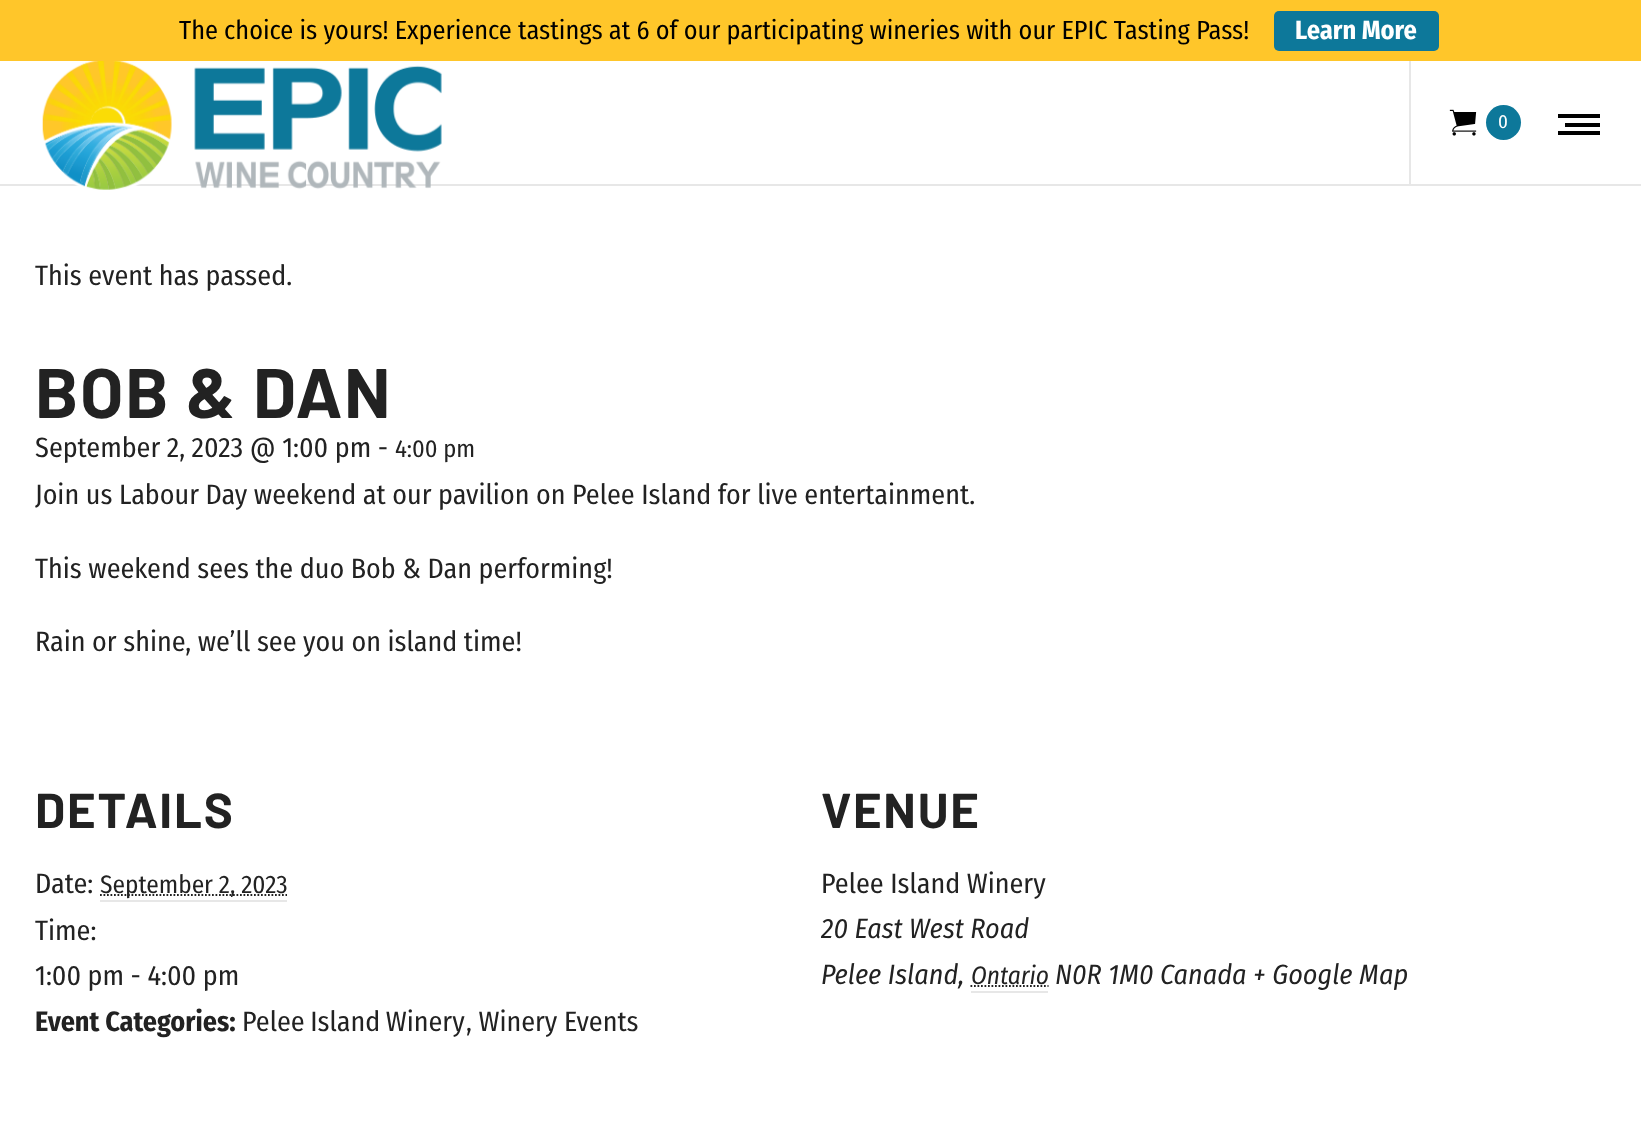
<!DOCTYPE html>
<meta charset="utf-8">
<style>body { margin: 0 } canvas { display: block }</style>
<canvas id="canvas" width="1641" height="1145"></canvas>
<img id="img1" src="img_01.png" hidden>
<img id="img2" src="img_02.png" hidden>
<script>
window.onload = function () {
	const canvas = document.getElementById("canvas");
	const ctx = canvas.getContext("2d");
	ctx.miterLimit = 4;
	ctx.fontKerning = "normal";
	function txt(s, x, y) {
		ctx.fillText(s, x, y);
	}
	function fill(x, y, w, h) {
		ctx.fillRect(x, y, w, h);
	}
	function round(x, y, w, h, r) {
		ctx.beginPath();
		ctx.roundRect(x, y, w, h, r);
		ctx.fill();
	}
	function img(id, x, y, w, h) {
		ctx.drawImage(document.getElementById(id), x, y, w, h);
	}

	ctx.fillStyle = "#FFFFFF";
	fill(0, 0, 1641, 1145);
	ctx.fillStyle = "#FFC62A";
	fill(0, 0, 1641, 61);
	ctx.fillStyle = "#0D789A";
	round(1274, 11, 165, 40, 5);
	ctx.fillStyle = "#E7E7E7";
	fill(0, 184, 1641, 2);
	img("img1", 42, 61, 400, 129);
	fill(1409, 61, 2, 123);
	img("img2", 1449, 109, 28, 27);
	ctx.fillStyle = "#0D789A";
	ctx.beginPath();
	ctx.arc(1503.5, 122.5, 17.5, 0, Math.PI * 2);
	ctx.fill();
	ctx.fillStyle = "#000000";
	fill(1558, 114, 42, 4);
	fill(1565, 123, 35, 4);
	fill(1558, 131, 42, 4);
	ctx.fillStyle = "#E7E7E7";
	fill(100, 900, 187, 2);
	ctx.beginPath();
	ctx.moveTo(100, 895);
	ctx.lineTo(287, 895);
	ctx.strokeStyle = "#222222";
	ctx.lineWidth = 1.8;
	ctx.setLineDash([1.75, 1.75]);
	ctx.stroke();
	fill(971, 991, 77, 2);
	ctx.beginPath();
	ctx.moveTo(970.5, 986);
	ctx.lineTo(1048.5, 986);
	ctx.stroke();
	ctx.font = "26.25px Fira Sans Condensed";
	ctx.fillStyle = "#000000";
	txt("The choice is yours! Experience tastings at 6 of our participating wineries with our EPIC Tasting Pass!", 179, 39);
	ctx.font = "bold 26.25px Fira Sans Condensed";
	ctx.fillStyle = "#FFFFFF";
	txt("Learn More", 1295, 39);
	ctx.font = "19px Fira Sans Condensed";
	txt("0", 1498, 128);
	ctx.font = "28px Fira Sans Condensed";
	ctx.fillStyle = "#222222";
	txt("This event has passed.", 35, 285);
	ctx.letterSpacing = "1.75px";
	ctx.font = "bold 70px Barlow";
	txt("BOB & DAN", 35, 418);
	ctx.letterSpacing = "0px";
	ctx.font = "28px Fira Sans Condensed";
	txt("September 2, 2023 @ 1:00 pm -", 35, 457);
	ctx.font = "24.5px Fira Sans Condensed";
	txt("4:00 pm", 395, 457);
	ctx.font = "28px Fira Sans Condensed";
	txt("Join us Labour Day weekend at our pavilion on Pelee Island for live entertainment.", 35, 504);
	txt("This weekend sees the duo Bob & Dan performing!", 35, 578);
	txt("Rain or shine, we’ll see you on island time!", 35, 651);
	ctx.letterSpacing = "1.75px";
	ctx.font = "bold 49px Barlow";
	txt("DETAILS", 35, 828);
	ctx.letterSpacing = "0px";
	ctx.font = "28px Fira Sans Condensed";
	txt("Date:", 35, 893);
	ctx.font = "25.25px Fira Sans Condensed";
	txt("September 2, 2023", 100, 893);
	ctx.font = "28px Fira Sans Condensed";
	txt("Time:", 35, 940);
	txt("1:00 pm - 4:00 pm", 35, 985);
	ctx.font = "bold 28px Fira Sans Condensed";
	txt("Event Categories:", 35, 1031);
	ctx.wordSpacing = "-1px";
	ctx.font = "28px Fira Sans Condensed";
	txt("Pelee Island Winery", 242, 1031);
	ctx.wordSpacing = "0px";
	txt(", Winery Events", 466, 1031);
	ctx.letterSpacing = "1.75px";
	ctx.font = "bold 49px Barlow";
	txt("VENUE", 821, 828);
	ctx.letterSpacing = "0px";
	ctx.font = "28px Fira Sans Condensed";
	txt("Pelee Island Winery", 821, 893);
	ctx.font = "italic 28px Fira Sans Condensed";
	txt("20 East West Road", 821, 938);
	txt("Pelee Island,", 821, 984);
	ctx.font = "italic 25.25px Fira Sans Condensed";
	txt("Ontario", 971, 984);
	ctx.font = "italic 28px Fira Sans Condensed";
	txt("N0R 1M0 Canada + Google Map", 1055, 984);
};
</script>
